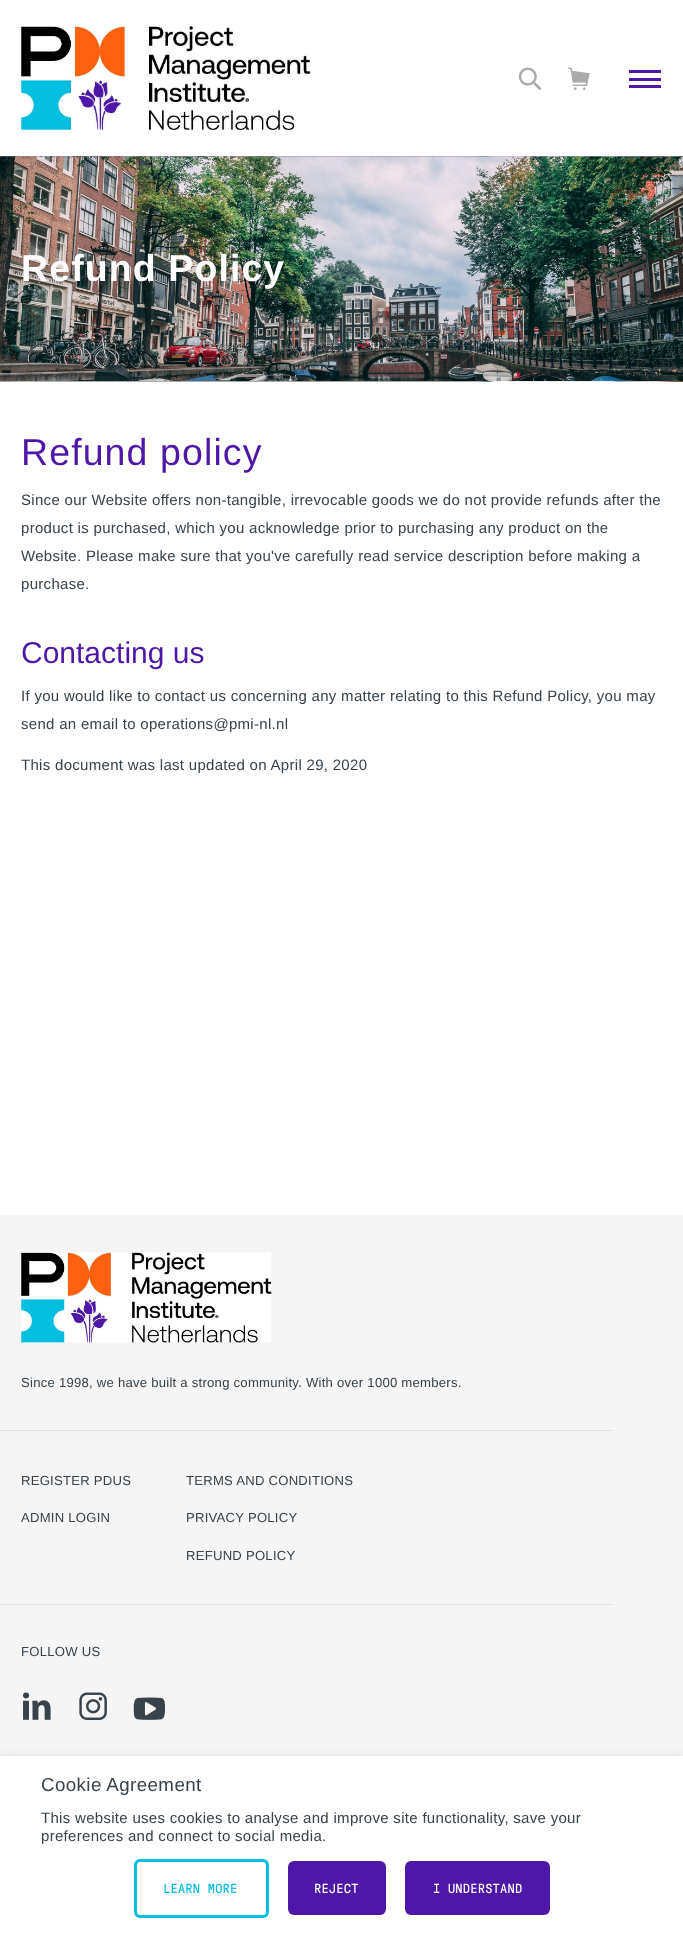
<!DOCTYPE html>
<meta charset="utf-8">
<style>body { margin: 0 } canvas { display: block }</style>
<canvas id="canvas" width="683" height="1936"></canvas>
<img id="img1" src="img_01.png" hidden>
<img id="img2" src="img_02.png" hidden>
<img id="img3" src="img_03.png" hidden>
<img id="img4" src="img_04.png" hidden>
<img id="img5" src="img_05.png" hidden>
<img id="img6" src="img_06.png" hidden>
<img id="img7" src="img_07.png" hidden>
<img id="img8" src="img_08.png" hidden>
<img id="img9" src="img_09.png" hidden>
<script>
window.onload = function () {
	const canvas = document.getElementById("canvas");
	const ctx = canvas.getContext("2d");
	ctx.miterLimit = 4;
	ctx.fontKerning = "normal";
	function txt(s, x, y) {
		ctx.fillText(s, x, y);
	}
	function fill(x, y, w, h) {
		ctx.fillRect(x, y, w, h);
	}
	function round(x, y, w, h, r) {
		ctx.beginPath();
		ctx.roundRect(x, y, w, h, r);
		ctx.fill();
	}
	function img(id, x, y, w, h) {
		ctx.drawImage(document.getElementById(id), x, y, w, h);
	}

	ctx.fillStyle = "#FFFFFF";
	fill(0, 0, 683, 1936);
	img("img1", 21, 26, 290, 104);
	img("img2", 518, 67, 24, 23);
	img("img3", 567, 67, 23, 23);
	ctx.fillStyle = "#4F17A7";
	fill(629, 70, 32, 3);
	fill(629, 78, 32, 3);
	fill(629, 85, 32, 3);
	img("img4", 0, 156, 683, 226);
	img("img5", 0, 156, 683, 226);
	ctx.fillStyle = "#F5F5F5";
	fill(0, 1215, 683, 541);
	ctx.fillStyle = "#E1E1E1";
	fill(0, 1430, 613, 1);
	img("img6", 21, 1252, 251, 91);
	fill(0, 1604, 613, 1);
	img("img7", 22, 1692, 29, 28);
	img("img8", 79, 1692, 28, 28);
	img("img9", 133, 1697, 32, 23);
	ctx.fillStyle = "#DDDDDD";
	ctx.filter = "blur(4.5px)";
	ctx.beginPath();
	ctx.rect(0, 1756, 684, 180);
	ctx.fill();
	ctx.filter = "none";
	ctx.fillStyle = "#FFFFFF";
	fill(0, 1756, 683, 180);
	ctx.beginPath();
	ctx.roundRect(135.5, 1860.5, 132, 56, 4.5);
	ctx.strokeStyle = "#05BFE0";
	ctx.lineWidth = 3;
	ctx.stroke();
	ctx.fillStyle = "#4F17A7";
	round(288, 1861, 98, 54, 6);
	round(405, 1861, 145, 54, 6);
	ctx.letterSpacing = "1.1px";
	ctx.font = "bold 37.5px Liberation Sans";
	ctx.fillStyle = "#FFFFFF";
	txt("Refund Policy", 21, 281);
	ctx.font = "37.5px Liberation Sans";
	ctx.fillStyle = "#4F17A7";
	txt("Refund policy", 21, 465);
	ctx.letterSpacing = "0.3px";
	ctx.font = "15px Liberation Sans";
	ctx.fillStyle = "#37424A";
	txt("Since our Website offers non-tangible, irrevocable goods we do not provide refunds after the", 21, 505);
	txt("product is purchased, which you acknowledge prior to purchasing any product on the", 21, 533);
	txt("Website. Please make sure that you've carefully read service description before making a", 21, 561);
	txt("purchase.", 21, 589);
	ctx.letterSpacing = "0px";
	ctx.font = "30px Liberation Sans";
	ctx.fillStyle = "#4F17A7";
	txt("Contacting us", 21, 663);
	ctx.letterSpacing = "0.3px";
	ctx.font = "15px Liberation Sans";
	ctx.fillStyle = "#37424A";
	txt("If you would like to contact us concerning any matter relating to this Refund Policy, you may", 21, 701);
	txt("send an email to operations@pmi-nl.nl", 21, 729);
	txt("This document was last updated on April 29, 2020", 21, 770);
	ctx.letterSpacing = "0.25px";
	ctx.font = "13.1px Liberation Sans";
	txt("Since 1998, we have built a strong community. With over 1000 members.", 21, 1387);
	txt("REGISTER PDUS", 21, 1485);
	txt("ADMIN LOGIN", 21, 1522);
	txt("TERMS AND CONDITIONS", 186, 1485);
	txt("PRIVACY POLICY", 186, 1522);
	txt("REFUND POLICY", 186, 1560);
	txt("FOLLOW US", 21, 1656);
	ctx.letterSpacing = "0.4px";
	ctx.font = "18.75px Liberation Sans";
	txt("Cookie Agreement", 41, 1791);
	ctx.letterSpacing = "0.3px";
	ctx.font = "15px Liberation Sans";
	txt("This website uses cookies to analyse and improve site functionality, save your", 41, 1823);
	txt("preferences and connect to social media.", 41, 1841);
	ctx.letterSpacing = "0.25px";
	ctx.font = "13.1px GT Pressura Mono";
	ctx.fillStyle = "#05BFE0";
	txt("LEARN MORE", 163, 1893);
	ctx.fillStyle = "#FFFFFF";
	txt("REJECT", 314, 1893);
	txt("I UNDERSTAND", 433, 1893);
};
</script>
